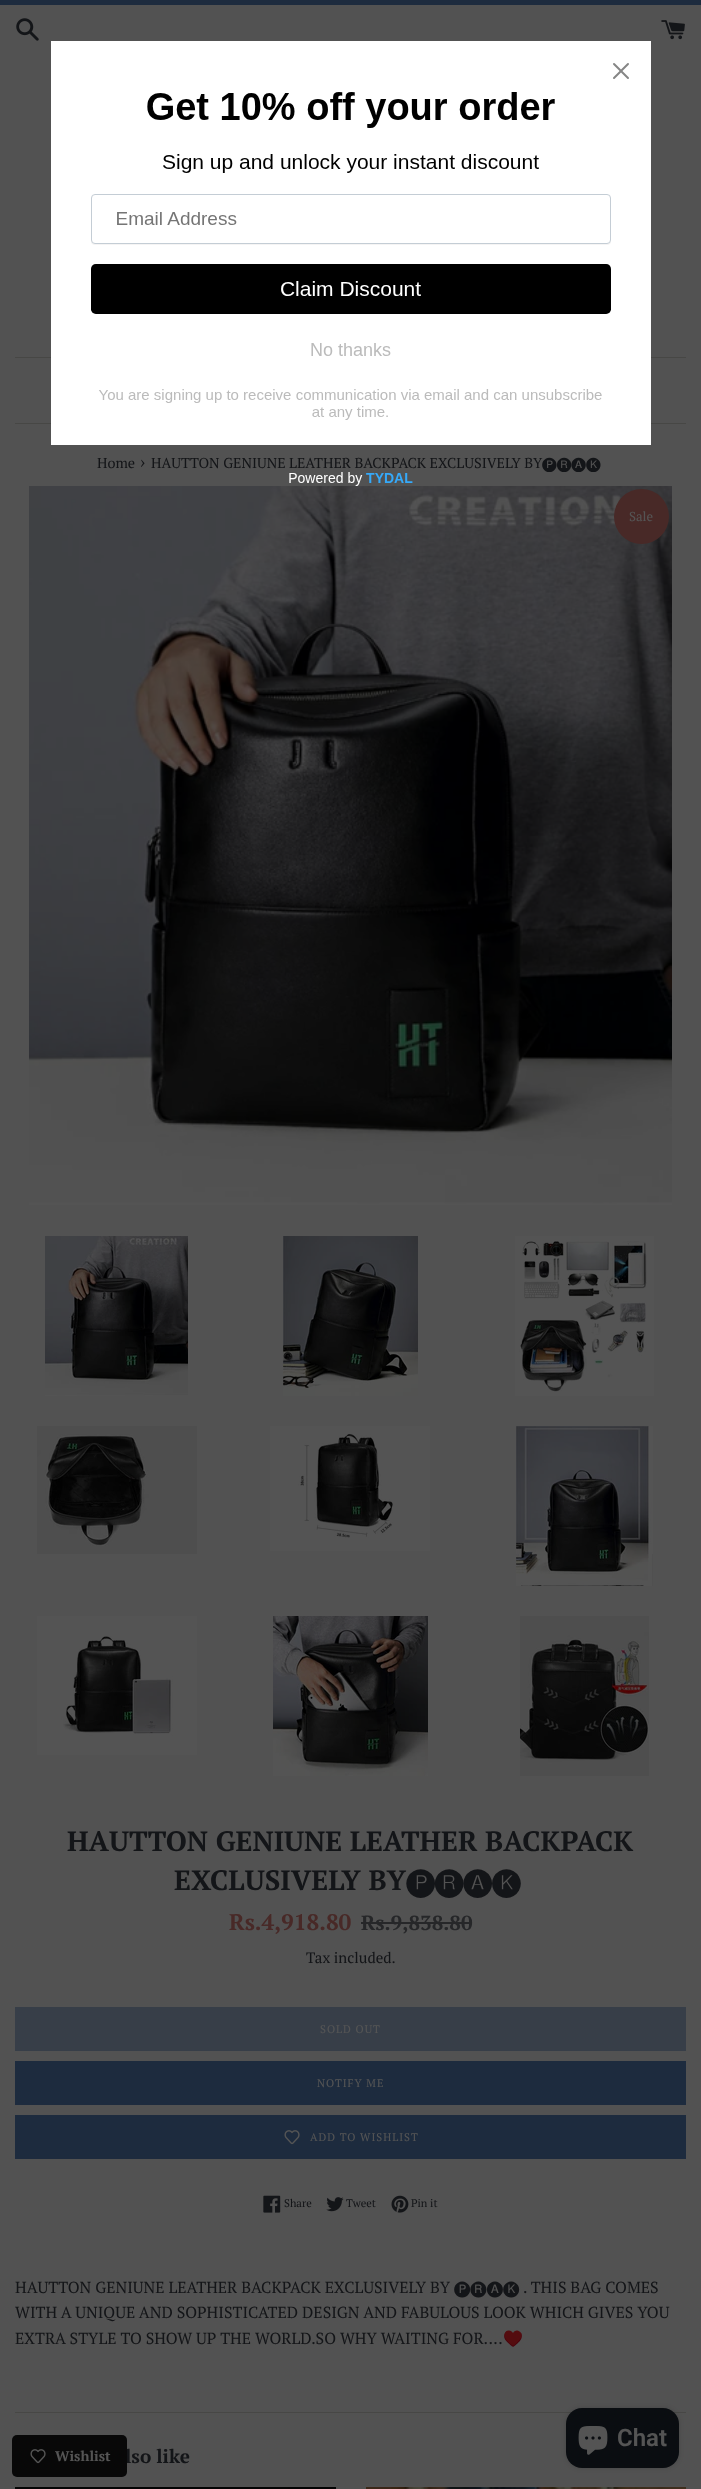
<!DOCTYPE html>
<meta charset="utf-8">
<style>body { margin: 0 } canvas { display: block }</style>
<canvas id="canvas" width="701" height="2489"></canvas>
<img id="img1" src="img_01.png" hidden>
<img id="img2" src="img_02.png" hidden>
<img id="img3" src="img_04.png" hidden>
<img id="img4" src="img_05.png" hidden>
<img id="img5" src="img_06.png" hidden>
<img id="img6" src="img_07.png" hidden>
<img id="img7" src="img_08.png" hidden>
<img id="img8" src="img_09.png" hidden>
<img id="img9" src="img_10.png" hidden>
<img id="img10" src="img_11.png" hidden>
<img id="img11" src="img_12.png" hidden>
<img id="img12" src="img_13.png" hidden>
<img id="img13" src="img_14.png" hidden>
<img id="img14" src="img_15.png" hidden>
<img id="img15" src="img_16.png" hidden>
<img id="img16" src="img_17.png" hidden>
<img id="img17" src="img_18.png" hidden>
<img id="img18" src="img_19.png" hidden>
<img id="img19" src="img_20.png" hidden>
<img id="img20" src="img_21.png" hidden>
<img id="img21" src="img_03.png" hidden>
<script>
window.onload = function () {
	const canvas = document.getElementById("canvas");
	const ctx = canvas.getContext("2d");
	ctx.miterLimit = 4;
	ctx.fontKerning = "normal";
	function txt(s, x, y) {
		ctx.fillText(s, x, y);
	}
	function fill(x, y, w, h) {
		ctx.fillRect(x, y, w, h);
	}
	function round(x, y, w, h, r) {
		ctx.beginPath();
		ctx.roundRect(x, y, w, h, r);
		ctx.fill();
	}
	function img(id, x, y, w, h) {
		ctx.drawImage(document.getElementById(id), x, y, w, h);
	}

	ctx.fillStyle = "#F7F7F7";
	fill(0, 0, 701, 2489);
	ctx.fillStyle = "#5983BC";
	fill(0, 0, 701, 5);
	img("img1", 16, 18, 23, 23);
	img("img2", 661, 20, 24, 20);
	ctx.fillStyle = "#D7D8D2";
	fill(15, 357, 671, 1);
	fill(15, 423, 671, 1);
	img("img3", 29, 486, 643, 719);
	ctx.fillStyle = "#D97C76";
	ctx.beginPath();
	ctx.arc(641.5, 516.5, 27.5, 0, Math.PI * 2);
	ctx.fill();
	img("img4", 45, 1236, 143, 160);
	img("img5", 283, 1236, 135, 160);
	img("img6", 515, 1236, 139, 160);
	img("img7", 37, 1426, 160, 128);
	img("img8", 270, 1426, 160, 125);
	img("img9", 516, 1426, 137, 160);
	img("img10", 37, 1616, 160, 139);
	img("img11", 273, 1616, 155, 160);
	img("img12", 520, 1616, 129, 160);
	ctx.fillStyle = "#74777D";
	fill(361, 1922, 111, 2);
	ctx.fillStyle = "#A8BDDA";
	fill(15, 2007, 671, 44);
	ctx.fillStyle = "#5983BC";
	fill(15, 2061, 671, 44);
	fill(15, 2115, 671, 44);
	img("img13", 284, 2130, 16, 15);
	img("img14", 263, 2195, 18, 18);
	img("img15", 326, 2197, 18, 15);
	img("img16", 391, 2195, 18, 18);
	ctx.fillStyle = "#D7D8D2";
	fill(15, 2412, 671, 1);
	img("img17", 15, 2487, 321, 2);
	img("img18", 366, 2487, 320, 2);
	ctx.fillStyle = "rgba(0, 0, 0, 0.15)";
	ctx.filter = "blur(2.5px)";
	ctx.beginPath();
	ctx.roundRect(566, 2408, 113, 60, 16);
	ctx.fill();
	ctx.filter = "none";
	ctx.fillStyle = "#202A36";
	round(566, 2408, 113, 60, 16);
	img("img19", 578, 2426, 30, 29);
	ctx.font = "14.4px PT Serif";
	ctx.fillStyle = "#3C4049";
	txt("Home", 97, 468);
	ctx.font = "18px PT Serif";
	txt("›", 140, 468);
	ctx.font = "14.4px PT Serif";
	txt("HAUTTON GENIUNE LEATHER BACKPACK EXCLUSIVELY BY", 151, 468);
	ctx.font = "14.4px FreeSans";
	txt("🅟🅡🅐🅚", 542, 468);
	ctx.font = "13px PT Serif";
	ctx.fillStyle = "#FFFFFF";
	txt("Sale", 629, 521);
	ctx.font = "bold 28px PT Serif";
	ctx.fillStyle = "#3C4049";
	txt("HAUTTON GENIUNE LEATHER BACKPACK", 67, 1851);
	txt("EXCLUSIVELY BY", 174, 1890);
	ctx.font = "bold 28px FreeSans";
	txt("🅟🅡🅐🅚", 406, 1890);
	ctx.font = "bold 22.5px PT Serif";
	ctx.fillStyle = "#D97C76";
	txt("Rs.4,918.80", 229, 1930);
	ctx.font = "bold 20.5px PT Serif";
	ctx.fillStyle = "#74777D";
	txt("Rs.9,838.80", 361, 1930);
	ctx.font = "15px PT Serif";
	ctx.fillStyle = "#3C4049";
	txt("Tax included.", 306, 1963);
	ctx.letterSpacing = "1px";
	ctx.font = "11px PT Serif";
	ctx.fillStyle = "#FFFFFF";
	txt("SOLD OUT", 320, 2033);
	txt("NOTIFY ME", 317, 2087);
	txt("ADD TO WISHLIST", 310, 2141);
	ctx.letterSpacing = "0px";
	ctx.fillStyle = "#3C4049";
	txt("Share", 284, 2207);
	txt("Tweet", 346, 2207);
	txt("Pin it", 411, 2207);
	ctx.font = "16px PT Serif";
	txt("HAUTTON GENIUNE LEATHER BACKPACK EXCLUSIVELY BY", 15, 2293);
	ctx.font = "16px FreeSans";
	txt("🅟🅡🅐🅚", 454, 2293);
	ctx.font = "16px PT Serif";
	txt(". THIS BAG COMES", 523, 2293);
	txt("WITH A UNIQUE AND SOPHISTICATED DESIGN AND FABULOUS LOOK WHICH GIVES YOU", 15, 2318);
	txt("EXTRA STYLE TO SHOW UP THE WORLD.SO WHY WAITING FOR....", 15, 2344);
	ctx.font = "16px Noto Color Emoji";
	txt("♥️", 503, 2344);
	ctx.font = "bold 19px PT Serif";
	txt("lso like", 125, 2463);
	ctx.font = "600 24px Roboto";
	ctx.fillStyle = "#FFFFFF";
	txt("Chat", 617, 2446);
	ctx.fillStyle = "#1A1A1A";
	round(12, 2435, 115, 42, 5);
	img("img20", 30, 2449, 16, 15);
	ctx.font = "bold 14px PT Serif";
	ctx.fillStyle = "#FFFFFF";
	txt("Wishlist", 55, 2461);
	img("img21", 0, 0, 701, 2489);
};
</script>
